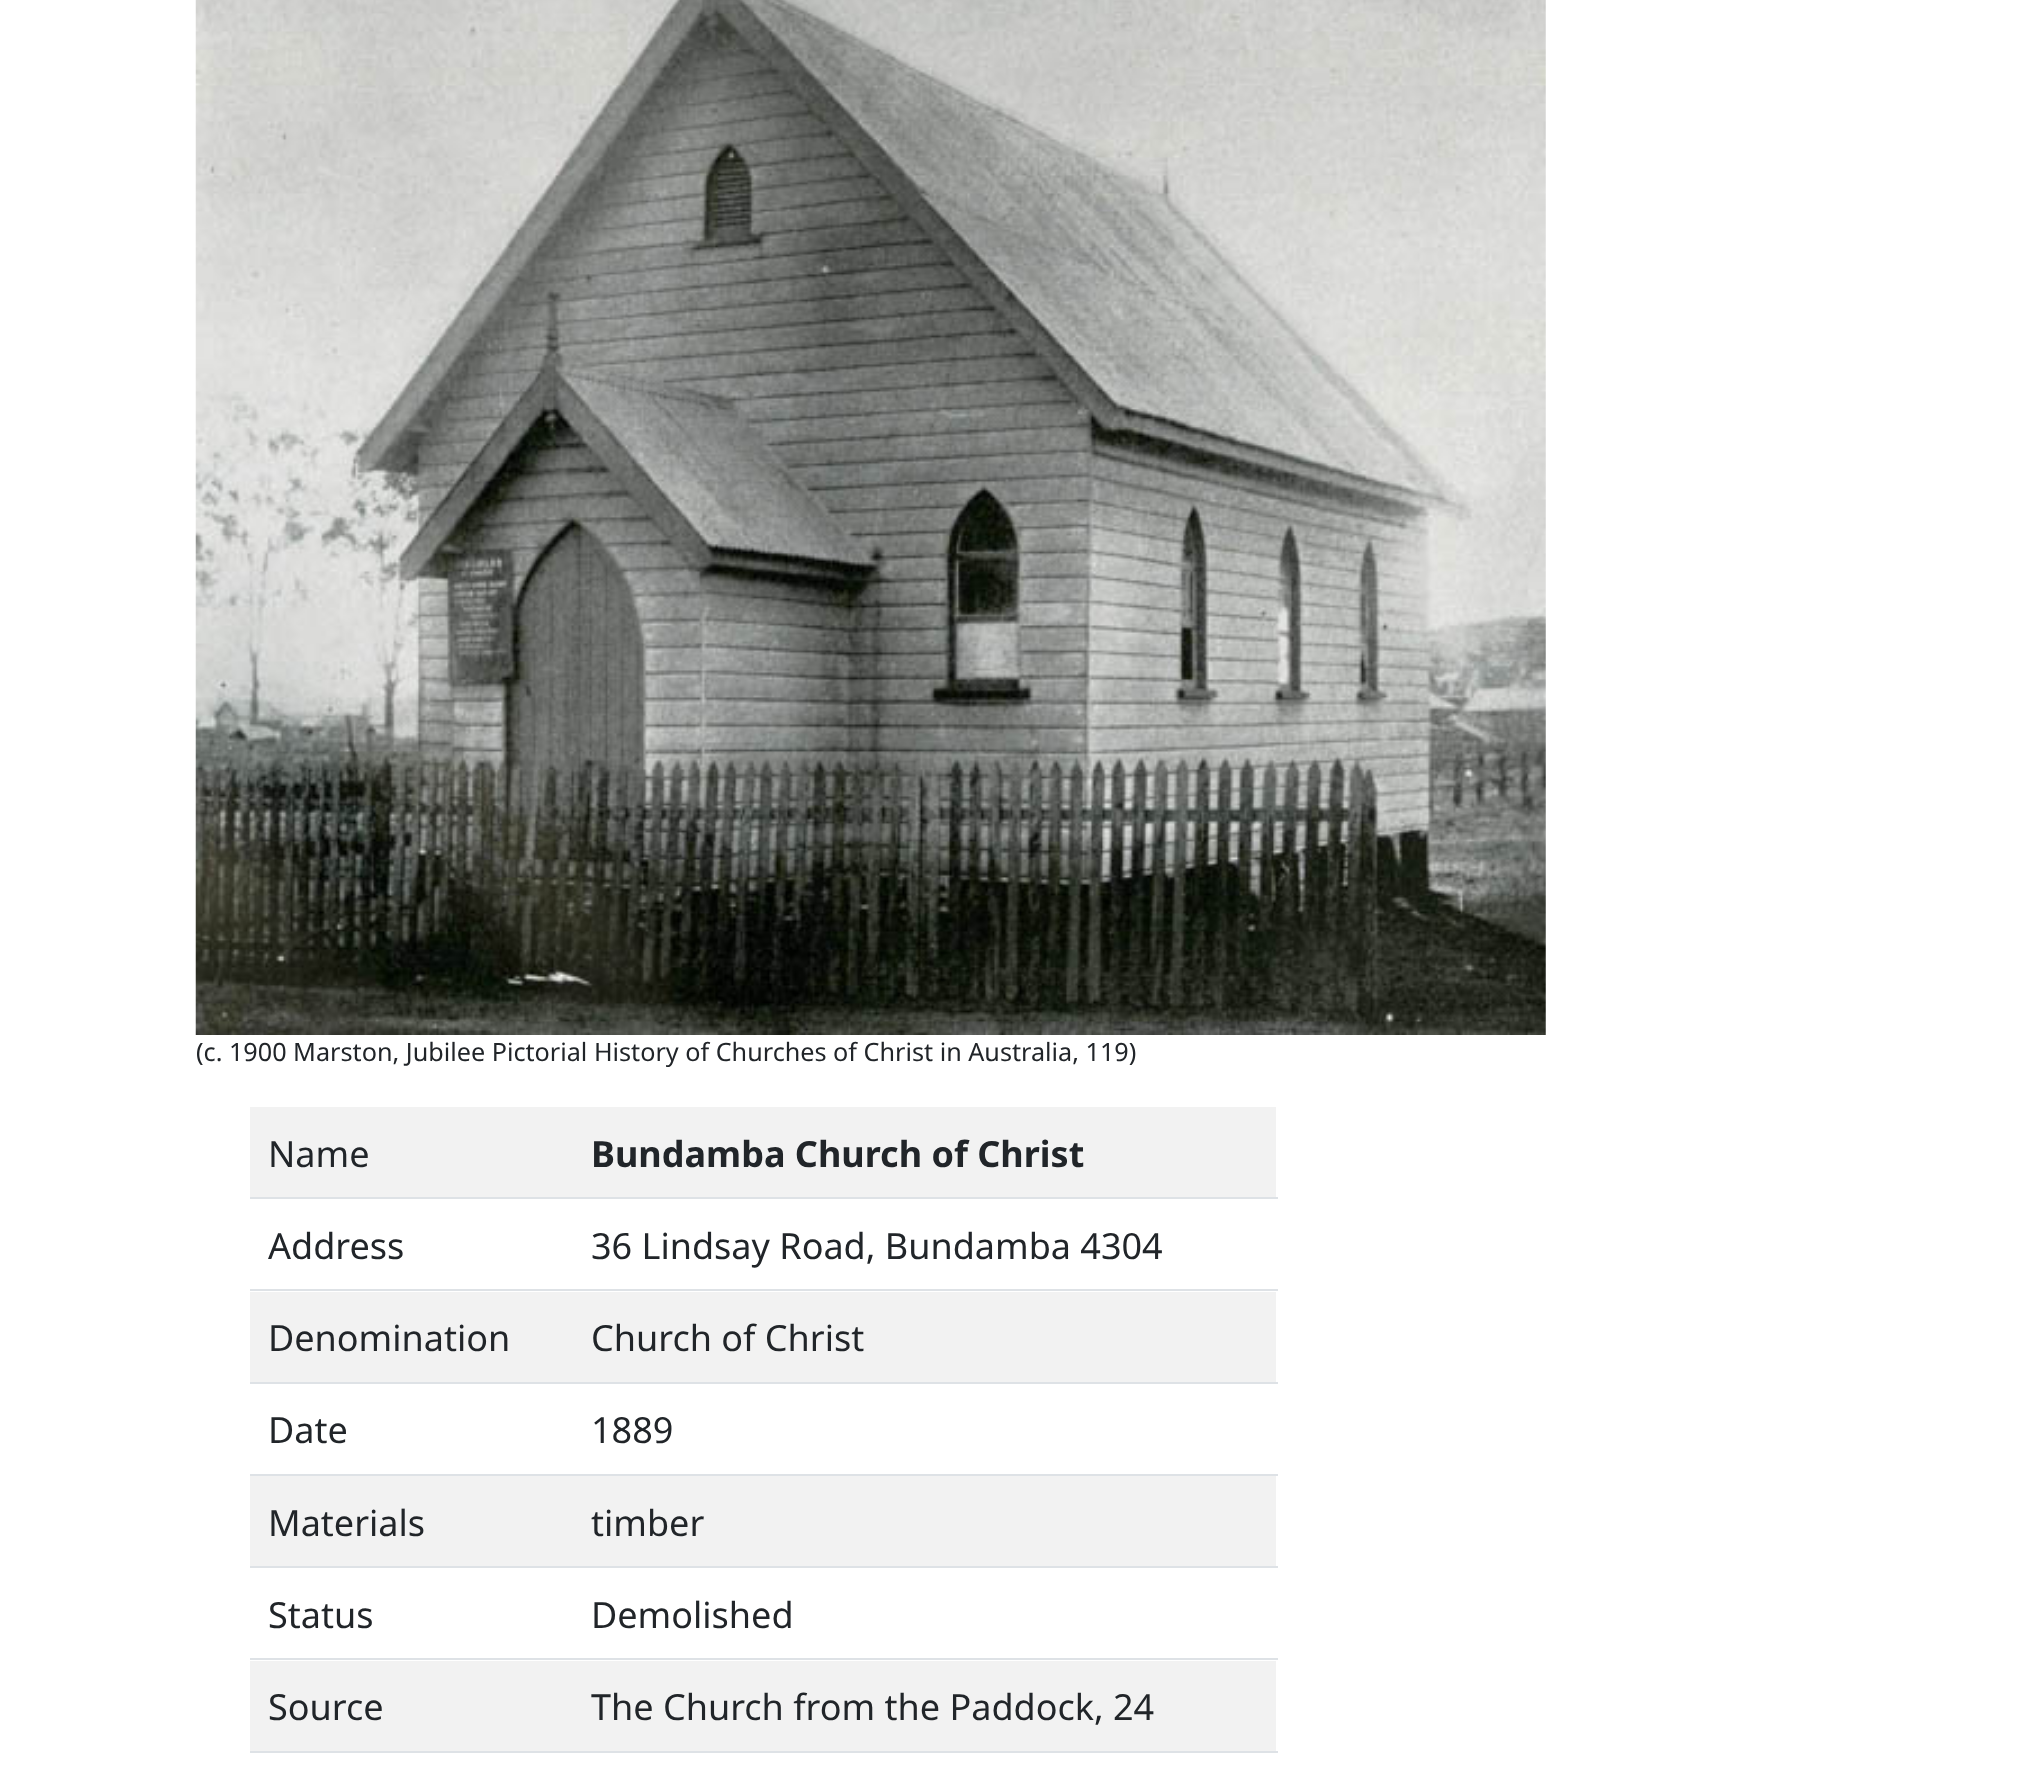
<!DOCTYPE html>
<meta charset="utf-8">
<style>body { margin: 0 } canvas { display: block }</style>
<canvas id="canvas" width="2031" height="1781"></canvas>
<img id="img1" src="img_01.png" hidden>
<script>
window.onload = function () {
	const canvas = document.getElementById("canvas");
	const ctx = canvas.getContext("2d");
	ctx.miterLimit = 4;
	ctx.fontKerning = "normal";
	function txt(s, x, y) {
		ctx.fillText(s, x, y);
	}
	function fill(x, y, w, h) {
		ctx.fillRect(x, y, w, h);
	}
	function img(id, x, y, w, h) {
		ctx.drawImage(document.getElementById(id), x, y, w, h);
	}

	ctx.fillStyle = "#FFFFFF";
	fill(0, 0, 2031, 1781);
	img("img1", 195, 0, 1351, 1035);
	ctx.fillStyle = "#F2F2F2";
	fill(250, 1107, 1026, 90);
	ctx.fillStyle = "#DEE2E6";
	fill(250, 1197, 1028, 2);
	fill(250, 1289, 1028, 2);
	ctx.fillStyle = "#F2F2F2";
	fill(250, 1292, 1026, 90);
	ctx.fillStyle = "#DEE2E6";
	fill(250, 1382, 1028, 2);
	fill(250, 1474, 1028, 2);
	ctx.fillStyle = "#F2F2F2";
	fill(250, 1476, 1026, 90);
	ctx.fillStyle = "#DEE2E6";
	fill(250, 1566, 1028, 2);
	fill(250, 1658, 1028, 2);
	ctx.fillStyle = "#F2F2F2";
	fill(250, 1661, 1026, 90);
	ctx.fillStyle = "#DEE2E6";
	fill(250, 1751, 1028, 2);
	ctx.font = "25.2px Noto Sans";
	ctx.fillStyle = "#212529";
	txt("(c. 1900 Marston, Jubilee Pictorial History of Churches of Christ in Australia, 119)", 196, 1061);
	ctx.font = "36px Noto Sans";
	txt("Name", 268, 1167);
	ctx.font = "bold 36px Noto Sans";
	txt("Bundamba Church of Christ", 591, 1167);
	ctx.font = "36px Noto Sans";
	txt("Address", 268, 1259);
	txt("36 Lindsay Road, Bundamba 4304", 591, 1259);
	txt("Denomination", 268, 1351);
	txt("Church of Christ", 591, 1351);
	txt("Date", 268, 1443);
	txt("1889", 591, 1443);
	txt("Materials", 268, 1536);
	txt("timber", 591, 1536);
	txt("Status", 268, 1628);
	txt("Demolished", 591, 1628);
	txt("Source", 268, 1720);
	txt("The Church from the Paddock, 24", 591, 1720);
};
</script>
